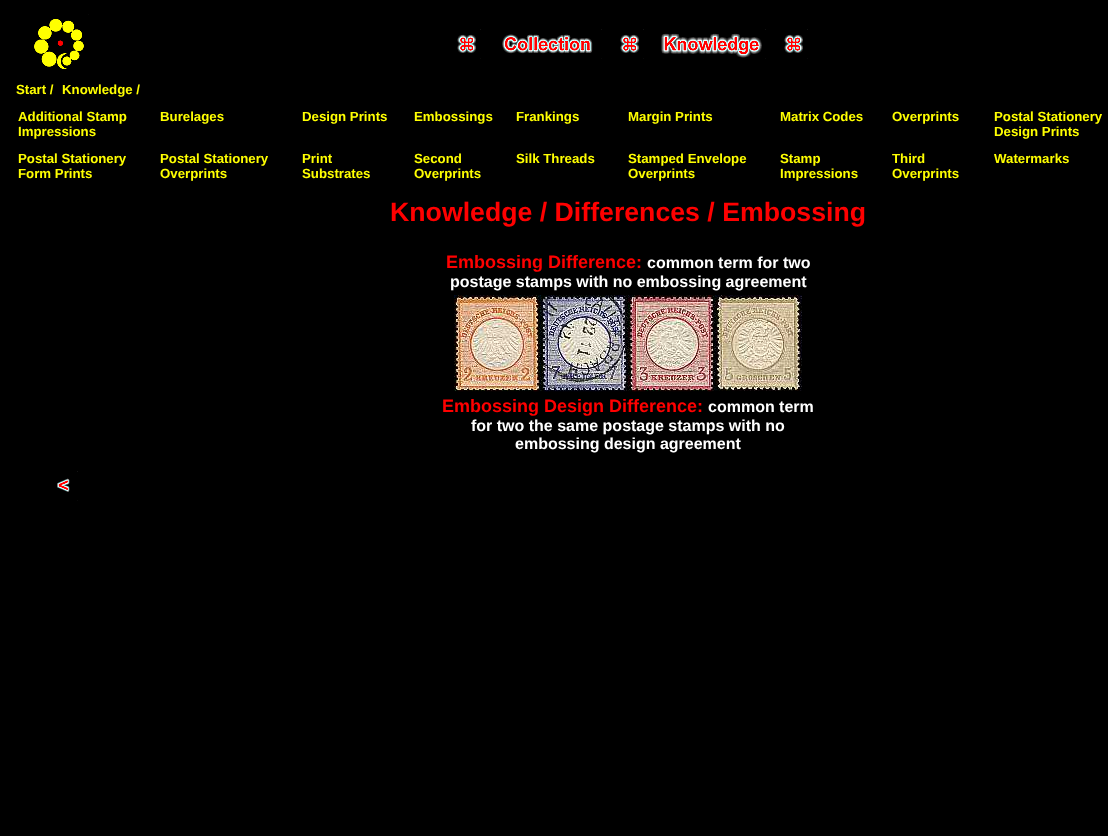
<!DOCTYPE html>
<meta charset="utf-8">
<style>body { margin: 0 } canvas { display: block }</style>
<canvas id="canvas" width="1108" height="836"></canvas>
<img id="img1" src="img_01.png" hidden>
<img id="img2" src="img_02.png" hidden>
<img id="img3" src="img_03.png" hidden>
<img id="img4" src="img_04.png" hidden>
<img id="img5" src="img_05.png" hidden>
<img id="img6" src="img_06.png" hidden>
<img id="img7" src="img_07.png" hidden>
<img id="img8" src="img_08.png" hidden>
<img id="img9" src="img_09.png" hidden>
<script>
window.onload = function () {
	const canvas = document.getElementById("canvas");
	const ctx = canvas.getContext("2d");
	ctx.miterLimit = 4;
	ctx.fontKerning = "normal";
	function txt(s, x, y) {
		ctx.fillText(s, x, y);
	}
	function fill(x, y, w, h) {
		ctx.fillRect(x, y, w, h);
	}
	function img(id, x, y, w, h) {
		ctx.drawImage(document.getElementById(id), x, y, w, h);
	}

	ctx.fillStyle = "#000000";
	fill(0, 0, 1108, 836);
	img("img1", 34, 14, 55, 55);
	img("img2", 457, 29, 24, 30);
	img("img3", 502, 29, 100, 30);
	img("img2", 620, 29, 24, 30);
	img("img4", 661, 29, 105, 30);
	img("img2", 784, 29, 24, 30);
	img("img5", 454, 295, 87, 97);
	img("img6", 541, 295, 87, 97);
	img("img7", 628, 295, 87, 97);
	img("img8", 715, 295, 87, 96);
	img("img9", 57, 471, 21, 30);
	ctx.font = "bold 13.25px Liberation Sans";
	ctx.fillStyle = "#FFFF00";
	txt("Start /", 16, 94);
	txt("Knowledge /", 62, 94);
	txt("Additional Stamp", 18, 121);
	txt("Impressions", 18, 136);
	txt("Burelages", 160, 121);
	txt("Design Prints", 302, 121);
	txt("Embossings", 414, 121);
	txt("Frankings", 516, 121);
	txt("Margin Prints", 628, 121);
	txt("Matrix Codes", 780, 121);
	txt("Overprints", 892, 121);
	txt("Postal Stationery", 994, 121);
	txt("Design Prints", 994, 136);
	txt("Postal Stationery", 18, 163);
	txt("Form Prints", 18, 178);
	txt("Postal Stationery", 160, 163);
	txt("Overprints", 160, 178);
	txt("Print", 302, 163);
	txt("Substrates", 302, 178);
	txt("Second", 414, 163);
	txt("Overprints", 414, 178);
	txt("Silk Threads", 516, 163);
	txt("Stamped Envelope", 628, 163);
	txt("Overprints", 628, 178);
	txt("Stamp", 780, 163);
	txt("Impressions", 780, 178);
	txt("Third", 892, 163);
	txt("Overprints", 892, 178);
	txt("Watermarks", 994, 163);
	ctx.font = "bold 26.7px Liberation Sans";
	ctx.fillStyle = "#FF0000";
	txt("Knowledge / Differences / Embossing", 390, 221);
	ctx.font = "bold 18px Liberation Sans";
	txt("Embossing Difference:", 446, 268);
	ctx.font = "bold 16px Liberation Sans";
	ctx.fillStyle = "#FFFFFF";
	txt("common term for two", 647, 268);
	txt("postage stamps with no embossing agreement", 450, 287);
	ctx.font = "bold 18px Liberation Sans";
	ctx.fillStyle = "#FF0000";
	txt("Embossing Design Difference:", 442, 412);
	ctx.font = "bold 16px Liberation Sans";
	ctx.fillStyle = "#FFFFFF";
	txt("common term", 708, 412);
	txt("for two the same postage stamps with no", 471, 431);
	txt("embossing design agreement", 515, 449);
};
</script>
